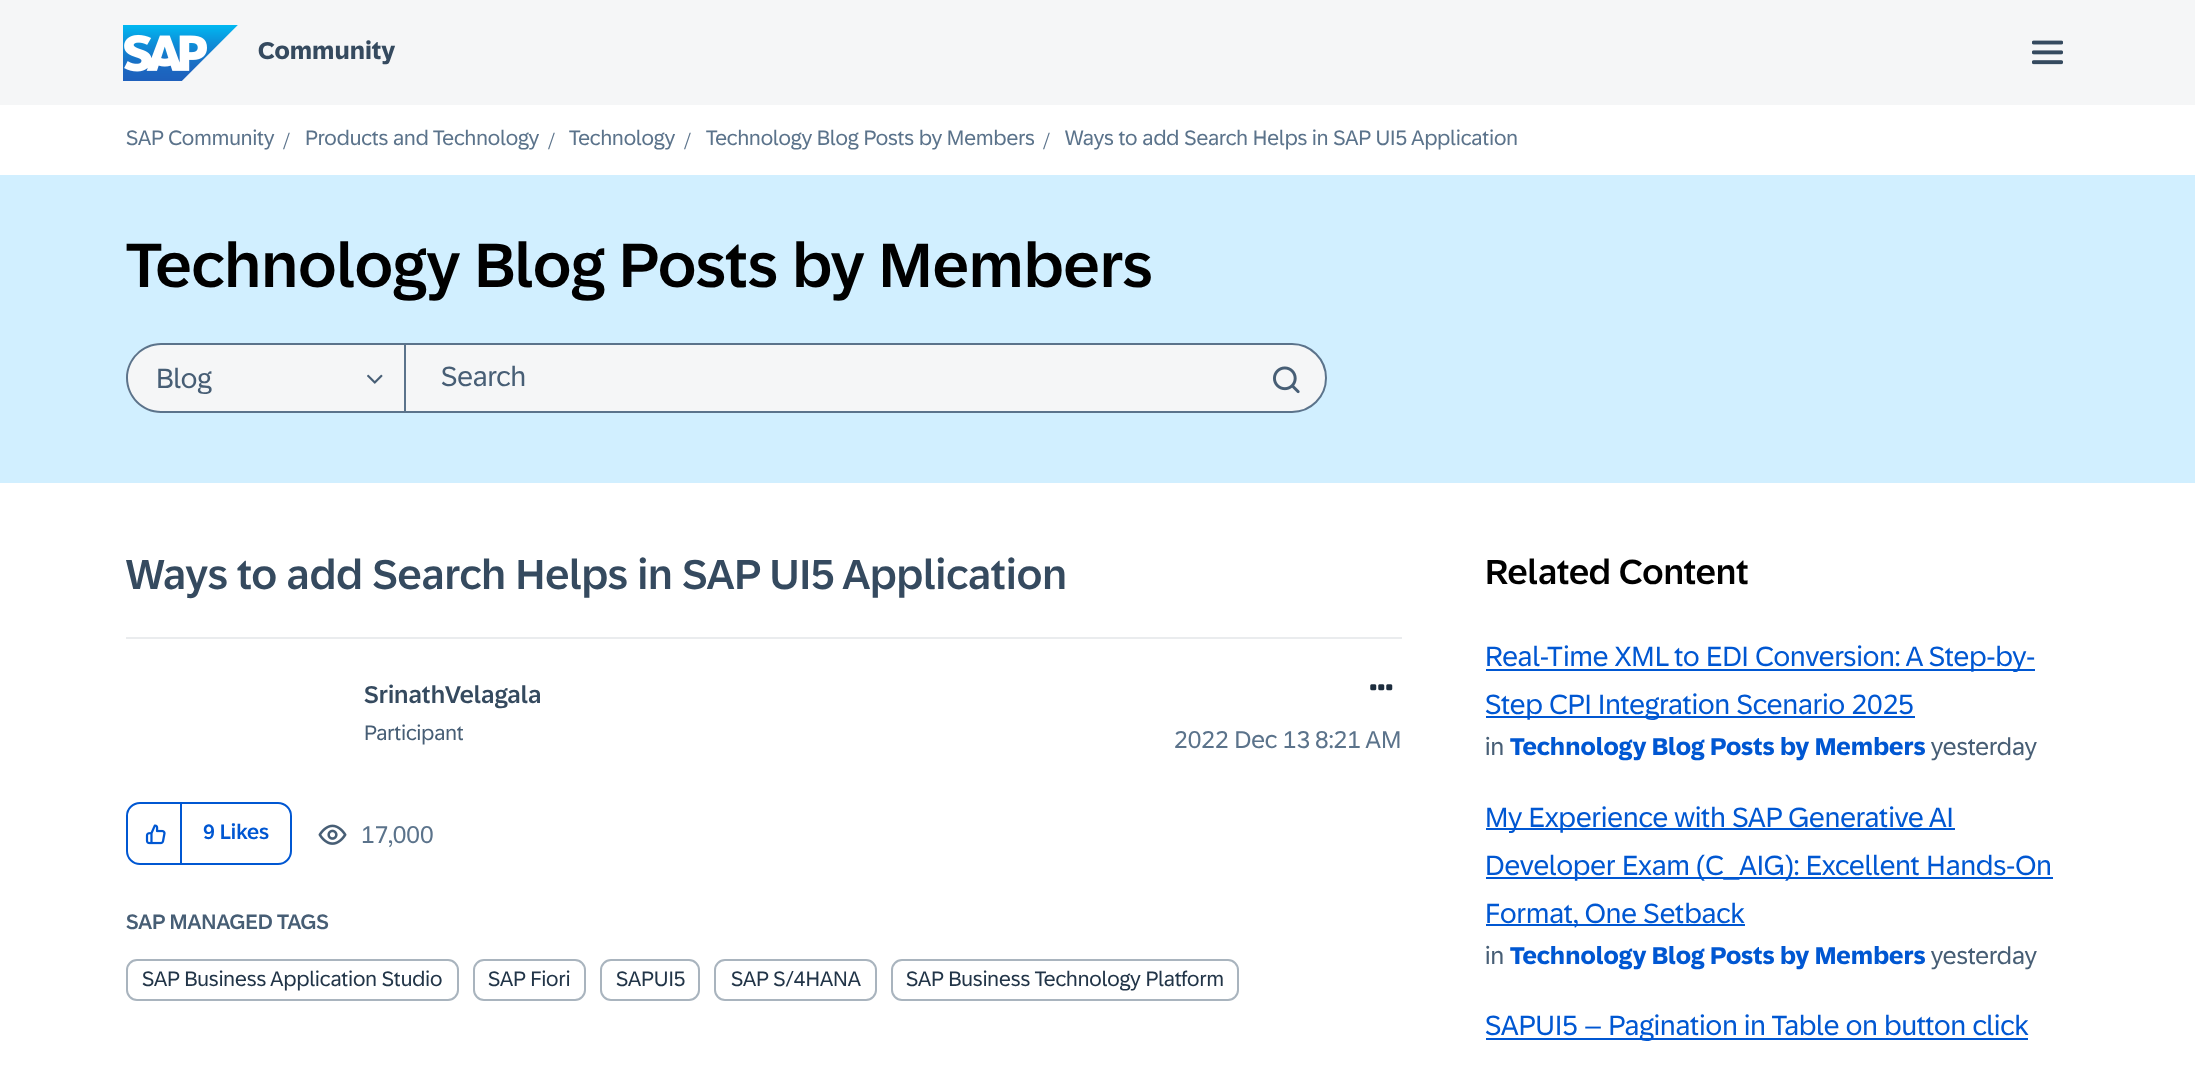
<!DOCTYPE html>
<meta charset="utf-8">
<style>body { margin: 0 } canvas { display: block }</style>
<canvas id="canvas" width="2195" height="1068"></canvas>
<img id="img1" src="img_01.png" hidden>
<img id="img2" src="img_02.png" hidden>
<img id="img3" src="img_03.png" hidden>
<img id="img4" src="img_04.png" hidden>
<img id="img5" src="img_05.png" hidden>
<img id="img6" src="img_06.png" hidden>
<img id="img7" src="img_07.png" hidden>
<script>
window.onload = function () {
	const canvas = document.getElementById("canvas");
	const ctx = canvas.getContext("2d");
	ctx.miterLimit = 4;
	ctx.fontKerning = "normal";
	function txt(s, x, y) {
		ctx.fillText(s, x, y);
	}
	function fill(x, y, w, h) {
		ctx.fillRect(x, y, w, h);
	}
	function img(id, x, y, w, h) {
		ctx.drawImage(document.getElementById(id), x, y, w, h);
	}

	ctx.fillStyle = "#FFFFFF";
	fill(0, 0, 2195, 1068);
	ctx.fillStyle = "#F5F6F7";
	fill(0, 0, 2195, 105);
	img("img1", 123, 25, 115, 56);
	img("img2", 2032, 40, 31, 25);
	ctx.fillStyle = "#D1EFFF";
	fill(0, 175, 2195, 308);
	ctx.fillStyle = "#F5F6F7";
	ctx.beginPath();
	ctx.roundRect(126, 343, 278, 70, [35, 0, 0, 35]);
	ctx.fill();
	ctx.fillStyle = "#5B738B";
	ctx.beginPath();
	ctx.moveTo(161, 343);
	ctx.lineTo(404, 343);
	ctx.lineTo(404, 413);
	ctx.lineTo(161, 413);
	ctx.bezierCurveTo(142, 413, 126, 397, 126, 378);
	ctx.bezierCurveTo(126, 359, 142, 343, 161, 343);
	ctx.closePath();
	ctx.moveTo(161, 345);
	ctx.lineTo(404, 345);
	ctx.lineTo(404, 411);
	ctx.lineTo(161, 411);
	ctx.bezierCurveTo(143, 411, 128, 396, 128, 378);
	ctx.bezierCurveTo(128, 360, 143, 345, 161, 345);
	ctx.closePath();
	ctx.fill("evenodd");
	img("img3", 367, 374, 16, 10);
	ctx.fillStyle = "#F5F6F7";
	ctx.beginPath();
	ctx.roundRect(405, 344, 921, 68, [0, 34, 34, 0]);
	ctx.fill();
	ctx.strokeStyle = "#5B738B";
	ctx.lineWidth = 2;
	ctx.stroke();
	img("img4", 1273, 366, 27, 28);
	ctx.fillStyle = "#EAECEE";
	fill(126, 637, 1276, 2);
	img("img5", 1370, 684, 23, 7);
	ctx.beginPath();
	ctx.roundRect(127, 803, 164, 61, 13);
	ctx.strokeStyle = "#0057D2";
	ctx.stroke();
	ctx.fillStyle = "#0057D2";
	fill(180, 803, 2, 62);
	img("img6", 145, 824, 21, 21);
	img("img7", 318, 824, 29, 21);
	ctx.beginPath();
	ctx.roundRect(127, 960, 331, 40, 10);
	ctx.strokeStyle = "#A9B4BE";
	ctx.stroke();
	ctx.beginPath();
	ctx.roundRect(474, 960, 111, 40, 10);
	ctx.stroke();
	ctx.beginPath();
	ctx.roundRect(601, 960, 98, 40, 10);
	ctx.stroke();
	ctx.beginPath();
	ctx.roundRect(715, 960, 161, 40, 10);
	ctx.stroke();
	ctx.beginPath();
	ctx.roundRect(892, 960, 346, 40, 10);
	ctx.stroke();
	fill(1486, 669, 549, 2);
	fill(1486, 716, 429, 2);
	fill(1486, 828, 469, 2);
	fill(1486, 877, 567, 2);
	fill(1486, 924, 259, 2);
	fill(1486, 1038, 542, 2);
	ctx.font = "bold 24.5px '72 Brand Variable'";
	ctx.fillStyle = "#354A5F";
	txt("Community", 258, 59);
	ctx.font = "21px '72 Brand Variable'";
	ctx.fillStyle = "#5B738B";
	txt("SAP Community", 126, 145);
	ctx.font = "24.5px Liberation Serif";
	txt("/", 283, 149);
	ctx.font = "21px '72 Brand Variable'";
	txt("Products and Technology", 305, 145);
	ctx.font = "24.5px Liberation Serif";
	txt("/", 548, 149);
	ctx.font = "21px '72 Brand Variable'";
	txt("Technology", 569, 145);
	ctx.font = "24.5px Liberation Serif";
	txt("/", 684, 149);
	ctx.font = "21px '72 Brand Variable'";
	txt("Technology Blog Posts by Members", 706, 145);
	ctx.font = "24.5px Liberation Serif";
	txt("/", 1043, 149);
	ctx.font = "21px '72 Brand Variable'";
	txt("Ways to add Search Helps in SAP UI5 Application", 1065, 145);
	ctx.font = "500 63px '72 Brand Variable'";
	ctx.fillStyle = "#000000";
	txt("Technology Blog Posts by Members", 126, 287);
	ctx.font = "28px '72 Brand Variable'";
	ctx.fillStyle = "#475E75";
	txt("Blog", 156, 388);
	txt("Search", 441, 386);
	ctx.font = "500 42px '72 Brand Variable'";
	ctx.fillStyle = "#354A5F";
	txt("Ways to add Search Helps in SAP UI5 Application", 126, 589);
	ctx.font = "500 24.5px '72 Brand Variable'";
	txt("SrinathVelagala", 364, 703);
	ctx.font = "21px '72 Brand Variable'";
	ctx.fillStyle = "#475E75";
	txt("Participant", 364, 740);
	ctx.font = "24.5px '72 Brand Variable'";
	ctx.fillStyle = "#5B738B";
	txt("2022 Dec 13", 1174, 748);
	txt("8:21 AM", 1315, 748);
	ctx.font = "500 21px '72 Brand Variable'";
	ctx.fillStyle = "#0057D2";
	txt("9 Likes", 203, 839);
	ctx.font = "24.5px '72 Brand Variable'";
	ctx.fillStyle = "#5B738B";
	txt("17,000", 361, 843);
	ctx.font = "500 21px '72 Brand Variable'";
	ctx.fillStyle = "#475E75";
	txt("SAP MANAGED TAGS", 126, 929);
	ctx.font = "21px '72 Brand Variable'";
	ctx.fillStyle = "#223548";
	txt("SAP Business Application Studio", 142, 986);
	txt("SAP Fiori", 488, 986);
	txt("SAPUI5", 616, 986);
	txt("SAP S/4HANA", 731, 986);
	txt("SAP Business Technology Platform", 906, 986);
	ctx.font = "500 35px '72 Brand Variable'";
	ctx.fillStyle = "#000000";
	txt("Related Content", 1485, 584);
	ctx.font = "28px '72 Brand Variable'";
	ctx.fillStyle = "#0057D2";
	txt("Real-Time XML to EDI Conversion: A Step-by-", 1485, 666);
	txt("Step CPI Integration Scenario 2025", 1485, 714);
	ctx.font = "24.5px '72 Brand Variable'";
	ctx.fillStyle = "#475E75";
	txt("in", 1485, 755);
	ctx.font = "bold 24.5px '72 Brand Variable'";
	ctx.fillStyle = "#0057D2";
	txt("Technology Blog Posts by Members", 1510, 755);
	ctx.font = "24.5px '72 Brand Variable'";
	ctx.fillStyle = "#475E75";
	txt("yesterday", 1931, 755);
	ctx.font = "28px '72 Brand Variable'";
	ctx.fillStyle = "#0057D2";
	txt("My Experience with SAP Generative AI", 1485, 827);
	txt("Developer Exam (C_AIG): Excellent Hands-On", 1485, 875);
	txt("Format, One Setback", 1485, 923);
	ctx.font = "24.5px '72 Brand Variable'";
	ctx.fillStyle = "#475E75";
	txt("in", 1485, 964);
	ctx.font = "bold 24.5px '72 Brand Variable'";
	ctx.fillStyle = "#0057D2";
	txt("Technology Blog Posts by Members", 1510, 964);
	ctx.font = "24.5px '72 Brand Variable'";
	ctx.fillStyle = "#475E75";
	txt("yesterday", 1931, 964);
	ctx.font = "28px '72 Brand Variable'";
	ctx.fillStyle = "#0057D2";
	txt("SAPUI5 – Pagination in Table on button click", 1485, 1035);
};
</script>
